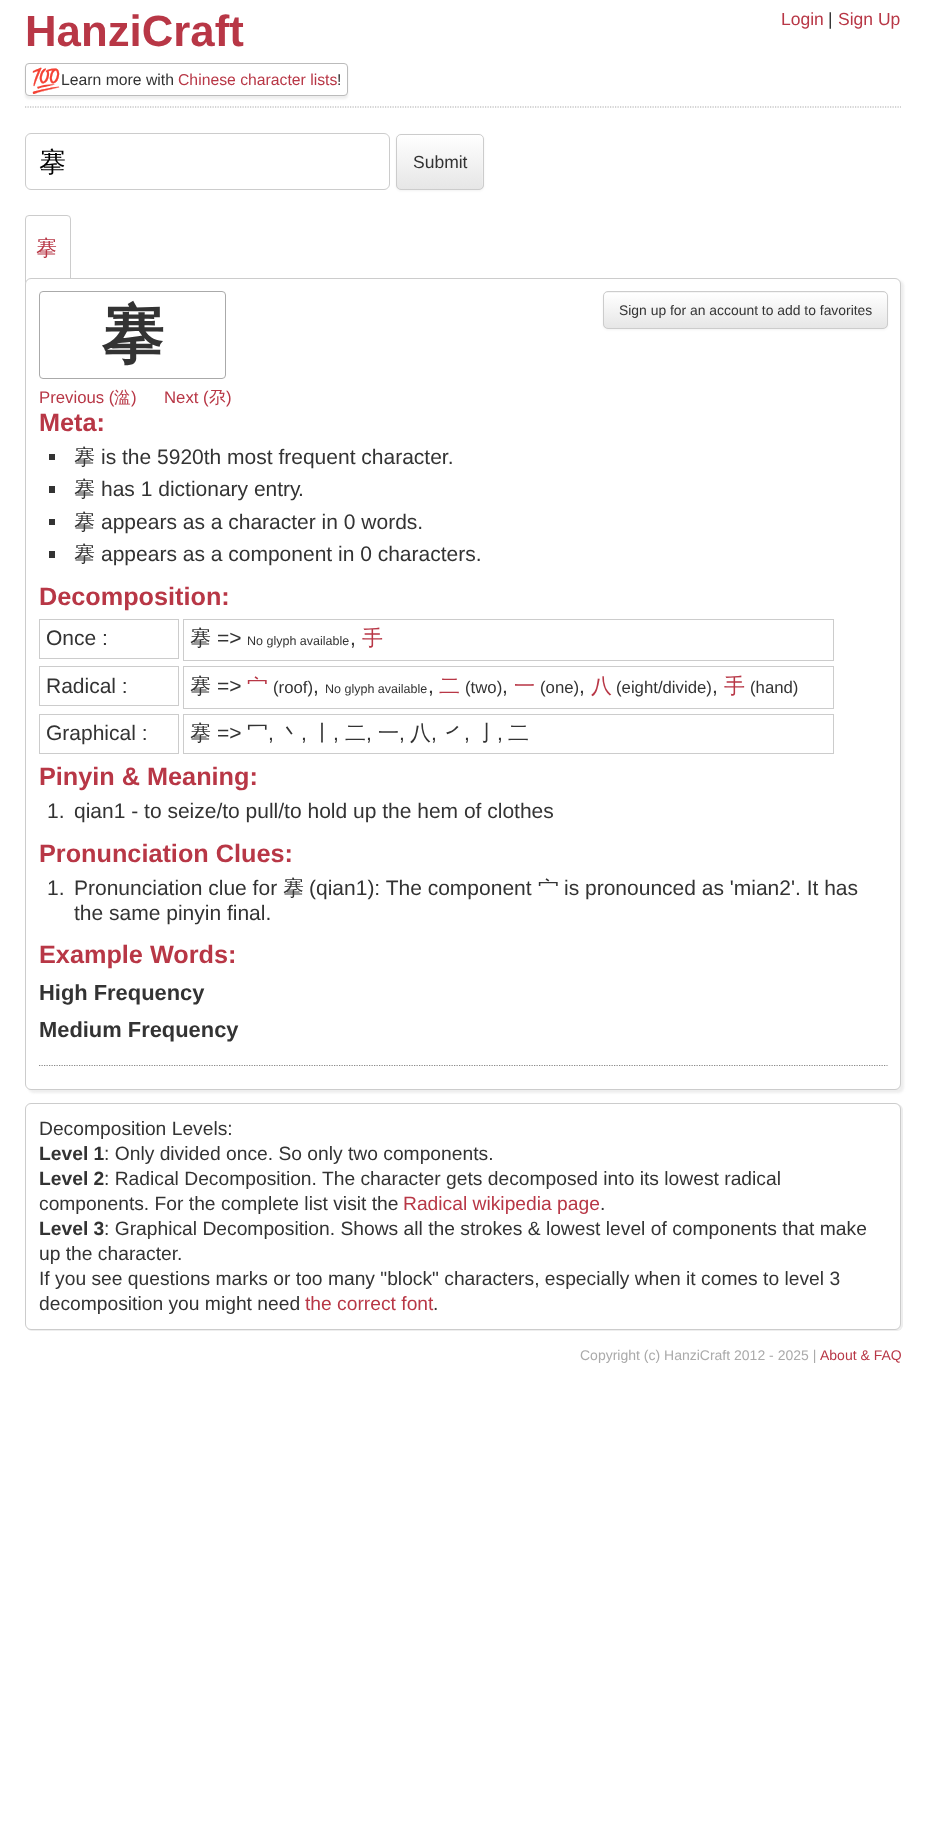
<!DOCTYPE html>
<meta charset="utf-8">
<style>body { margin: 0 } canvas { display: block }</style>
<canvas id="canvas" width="926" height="1842"></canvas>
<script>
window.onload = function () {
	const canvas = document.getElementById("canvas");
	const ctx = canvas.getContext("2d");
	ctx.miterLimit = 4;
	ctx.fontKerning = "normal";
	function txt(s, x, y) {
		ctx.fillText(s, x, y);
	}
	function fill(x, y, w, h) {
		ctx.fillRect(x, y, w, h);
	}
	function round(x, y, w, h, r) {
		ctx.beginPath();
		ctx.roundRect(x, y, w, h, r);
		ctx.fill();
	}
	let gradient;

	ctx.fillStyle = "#FFFFFF";
	fill(0, 0, 926, 1842);
	ctx.beginPath();
	ctx.moveTo(25, 107);
	ctx.lineTo(901, 107);
	ctx.strokeStyle = "#AAAAAA";
	ctx.lineWidth = 1.2;
	ctx.setLineDash([1.25, 1.25]);
	ctx.stroke();
	ctx.fillStyle = "#EEEEEE";
	ctx.filter = "blur(1px)";
	ctx.beginPath();
	ctx.roundRect(25, 65, 323, 34, 4);
	ctx.fill();
	ctx.filter = "none";
	ctx.fillStyle = "#FFFFFF";
	ctx.beginPath();
	ctx.roundRect(25.5, 63.5, 322, 32, 3.5);
	ctx.fill();
	ctx.strokeStyle = "#BBBBBB";
	ctx.lineWidth = 1;
	ctx.setLineDash([]);
	ctx.stroke();
	ctx.beginPath();
	ctx.roundRect(25.5, 133.5, 364, 56, 5.5);
	ctx.strokeStyle = "#CCCCCC";
	ctx.stroke();
	ctx.fillStyle = "rgba(0, 0, 0, 0.05)";
	ctx.filter = "blur(1px)";
	ctx.beginPath();
	ctx.roundRect(396, 135, 88, 56, 5);
	ctx.fill();
	ctx.filter = "none";
	ctx.save();
	ctx.beginPath();
	ctx.roundRect(396, 134, 88, 56, 5);
	ctx.clip();
	gradient = ctx.createLinearGradient(440, 135, 440, 189);
	gradient.addColorStop(0, "#FFFFFF");
	gradient.addColorStop(1, "#E6E6E6");
	ctx.fillStyle = gradient;
	fill(396, 135, 88, 54);
	ctx.restore();
	ctx.fillStyle = "rgba(255, 255, 255, 0.2)";
	ctx.beginPath();
	ctx.moveTo(401, 136);
	ctx.lineTo(479, 136);
	ctx.bezierCurveTo(484, 136, 482, 147, 482, 148);
	ctx.lineTo(482, 188);
	ctx.bezierCurveTo(482, 187, 483, 186, 483, 185);
	ctx.lineTo(483, 139);
	ctx.bezierCurveTo(483, 137, 481, 135, 479, 135);
	ctx.lineTo(402, 135);
	ctx.bezierCurveTo(400, 135, 398, 137, 398, 139);
	ctx.lineTo(398, 140);
	ctx.bezierCurveTo(398, 138, 399, 136, 401, 136);
	ctx.closePath();
	ctx.fill();
	ctx.beginPath();
	ctx.roundRect(396.5, 134.5, 87, 55, 4.5);
	ctx.stroke();
	ctx.beginPath();
	ctx.roundRect(25.5, 215.5, 45, 67, [3.5, 3.5, 0, 0]);
	ctx.stroke();
	ctx.fillStyle = "#EEEEEE";
	ctx.filter = "blur(1px)";
	ctx.beginPath();
	ctx.roundRect(28, 280, 876, 813, 6);
	ctx.fill();
	ctx.filter = "none";
	ctx.fillStyle = "#FFFFFF";
	ctx.beginPath();
	ctx.roundRect(25.5, 278.5, 875, 811, 5.5);
	ctx.fill();
	ctx.stroke();
	ctx.beginPath();
	ctx.moveTo(39, 1065.5);
	ctx.lineTo(887.5, 1065.5);
	ctx.strokeStyle = "#888888";
	ctx.lineWidth = 1.2;
	ctx.setLineDash([1.25, 1.25]);
	ctx.stroke();
	ctx.beginPath();
	ctx.roundRect(39.5, 291.5, 186, 87, 3.5);
	ctx.strokeStyle = "#AAAAAA";
	ctx.lineWidth = 1;
	ctx.setLineDash([]);
	ctx.stroke();
	ctx.fillStyle = "#333333";
	fill(49, 454, 6, 6);
	fill(49, 486, 6, 7);
	fill(49, 519, 6, 6);
	fill(49, 551, 6, 7);
	ctx.strokeStyle = "#CCCCCC";
	ctx.strokeRect(39.5, 619.5, 139, 39);
	ctx.strokeRect(183.5, 619.5, 650, 41);
	ctx.strokeRect(39.5, 666.5, 139, 39);
	ctx.strokeRect(183.5, 666.5, 650, 42);
	ctx.strokeRect(39.5, 714.5, 139, 39);
	ctx.strokeRect(183.5, 714.5, 650, 39);
	ctx.fillStyle = "rgba(0, 0, 0, 0.05)";
	ctx.filter = "blur(1px)";
	ctx.beginPath();
	ctx.roundRect(603, 293, 285, 37, 5);
	ctx.fill();
	ctx.filter = "none";
	ctx.fillStyle = "#F5F5F5";
	round(603, 291, 285, 38, 5);
	ctx.save();
	ctx.beginPath();
	ctx.roundRect(603, 291, 285, 38, 5);
	ctx.clip();
	gradient = ctx.createLinearGradient(745, 293, 745, 328);
	gradient.addColorStop(0, "#FFFFFF");
	gradient.addColorStop(1, "#E6E6E6");
	ctx.fillStyle = gradient;
	fill(603, 293, 285, 35);
	ctx.restore();
	ctx.beginPath();
	ctx.roundRect(603.5, 291.5, 284, 37, 4.5);
	ctx.stroke();
	ctx.fillStyle = "#EEEEEE";
	ctx.filter = "blur(0.5px)";
	ctx.beginPath();
	ctx.roundRect(26, 1104, 877, 227, 6);
	ctx.fill();
	ctx.filter = "none";
	ctx.fillStyle = "#FFFFFF";
	ctx.beginPath();
	ctx.roundRect(25.5, 1103.5, 875, 226, 5.5);
	ctx.fill();
	ctx.stroke();
	ctx.font = "bold 43.75px Liberation Sans";
	ctx.fillStyle = "#B83746";
	txt("HanziCraft", 25, 46);
	ctx.font = "24px Noto Color Emoji";
	ctx.fillStyle = "#333333";
	txt("💯", 31, 89);
	ctx.font = "15.75px Liberation Sans";
	txt("Learn more with", 61, 85);
	ctx.fillStyle = "#B83746";
	txt("Chinese character lists", 178, 85);
	ctx.fillStyle = "#333333";
	txt("!", 337, 85);
	ctx.font = "17.5px Liberation Sans";
	ctx.fillStyle = "#B83746";
	txt("Login", 781, 25);
	ctx.fillStyle = "#333333";
	txt("|", 828, 25);
	ctx.fillStyle = "#B83746";
	txt("Sign Up", 838, 25);
	ctx.font = "500 27px WenQuanYi Zen Hei";
	ctx.fillStyle = "#000000";
	txt("搴", 39, 171);
	ctx.font = "17.5px Liberation Sans";
	ctx.fillStyle = "#333333";
	txt("Submit", 413, 168);
	ctx.font = "500 21px WenQuanYi Zen Hei";
	ctx.fillStyle = "#B83746";
	txt("搴", 36, 255);
	ctx.font = "bold 63px WenQuanYi Zen Hei";
	ctx.fillStyle = "#333333";
	txt("搴", 101, 356);
	ctx.font = "16.75px Liberation Sans";
	ctx.fillStyle = "#B83746";
	txt("Previous (", 39, 403);
	ctx.font = "500 16.75px WenQuanYi Zen Hei";
	txt("湓", 114, 403);
	ctx.font = "16.75px Liberation Sans";
	txt(")", 131, 403);
	txt("Next (", 164, 403);
	ctx.font = "500 16.75px WenQuanYi Zen Hei";
	txt("尕", 209, 403);
	ctx.font = "16.75px Liberation Sans";
	txt(")", 226, 403);
	ctx.font = "bold 25.25px Liberation Sans";
	txt("Meta:", 39, 431);
	ctx.font = "500 21px WenQuanYi Zen Hei";
	ctx.fillStyle = "#333333";
	txt("搴", 74, 464);
	ctx.font = "21px Liberation Sans";
	txt("is the 5920th most frequent character.", 101, 464);
	ctx.font = "500 21px WenQuanYi Zen Hei";
	txt("搴", 74, 496);
	ctx.font = "21px Liberation Sans";
	txt("has 1 dictionary entry", 101, 496);
	txt(".", 298, 496);
	ctx.font = "500 21px WenQuanYi Zen Hei";
	txt("搴", 74, 529);
	ctx.font = "21px Liberation Sans";
	txt("appears as a character in 0 words.", 101, 529);
	ctx.font = "500 21px WenQuanYi Zen Hei";
	txt("搴", 74, 561);
	ctx.font = "21px Liberation Sans";
	txt("appears as a component in 0 characters.", 101, 561);
	ctx.font = "bold 25.25px Liberation Sans";
	ctx.fillStyle = "#B83746";
	txt("Decomposition:", 39, 605);
	ctx.font = "21px Liberation Sans";
	ctx.fillStyle = "#333333";
	txt("Once :", 46, 645);
	ctx.font = "500 21px WenQuanYi Zen Hei";
	txt("搴", 190, 645);
	ctx.font = "21px Liberation Sans";
	txt("=>", 217, 645);
	ctx.font = "12.5px Liberation Sans";
	txt("No glyph available", 247, 645);
	ctx.font = "21px Liberation Sans";
	txt(",", 350, 645);
	ctx.font = "500 21px WenQuanYi Zen Hei";
	ctx.fillStyle = "#B83746";
	txt("手", 362, 645);
	ctx.font = "21px Liberation Sans";
	ctx.fillStyle = "#333333";
	txt("Radical :", 46, 693);
	ctx.font = "500 21px WenQuanYi Zen Hei";
	txt("搴", 190, 693);
	ctx.font = "21px Liberation Sans";
	txt("=>", 217, 693);
	ctx.font = "500 21px WenQuanYi Zen Hei";
	ctx.fillStyle = "#B83746";
	txt("宀", 247, 693);
	ctx.font = "16.75px Liberation Sans";
	ctx.fillStyle = "#333333";
	txt("(roof)", 273, 693);
	ctx.font = "12.5px Liberation Sans";
	txt("No glyph available", 325, 693);
	ctx.font = "500 21px WenQuanYi Zen Hei";
	ctx.fillStyle = "#B83746";
	txt("二", 439, 693);
	ctx.font = "16.75px Liberation Sans";
	ctx.fillStyle = "#333333";
	txt("(two)", 465, 693);
	ctx.font = "500 21px WenQuanYi Zen Hei";
	ctx.fillStyle = "#B83746";
	txt("一", 514, 693);
	ctx.font = "16.75px Liberation Sans";
	ctx.fillStyle = "#333333";
	txt("(one)", 540, 693);
	ctx.font = "500 21px WenQuanYi Zen Hei";
	ctx.fillStyle = "#B83746";
	txt("八", 591, 693);
	ctx.font = "16.75px Liberation Sans";
	ctx.fillStyle = "#333333";
	txt("(eight/divide)", 616, 693);
	ctx.font = "500 21px WenQuanYi Zen Hei";
	ctx.fillStyle = "#B83746";
	txt("手", 724, 693);
	ctx.font = "16.75px Liberation Sans";
	ctx.fillStyle = "#333333";
	txt("(hand)", 750, 693);
	ctx.font = "21px Liberation Sans";
	txt(",", 313, 693);
	txt(",", 428, 693);
	txt(",", 502, 693);
	txt(",", 579, 693);
	txt(",", 712, 693);
	txt("Graphical :", 46, 740);
	ctx.font = "500 21px WenQuanYi Zen Hei";
	txt("搴", 190, 740);
	ctx.font = "21px Liberation Sans";
	txt("=>", 217, 740);
	ctx.font = "500 21px WenQuanYi Zen Hei";
	txt("冖", 247, 740);
	txt("丶", 280, 740);
	txt("丨", 312, 740);
	txt("二", 345, 740);
	txt("一", 378, 740);
	txt("八", 410, 740);
	txt("㇒", 443, 740);
	txt("亅", 476, 740);
	txt("二", 508, 740);
	ctx.font = "21px Liberation Sans";
	txt(",", 268, 740);
	txt(",", 301, 740);
	txt(",", 333, 740);
	txt(",", 366, 740);
	txt(",", 399, 740);
	txt(",", 431, 740);
	txt(",", 464, 740);
	txt(",", 497, 740);
	ctx.font = "bold 25.25px Liberation Sans";
	ctx.fillStyle = "#B83746";
	txt("Pinyin & Meaning:", 39, 785);
	ctx.font = "21px Liberation Sans";
	ctx.fillStyle = "#333333";
	txt("1.", 47, 818);
	txt("qian1 - to seize/to pull/to hold up the hem of clothes", 74, 818);
	ctx.font = "bold 25.25px Liberation Sans";
	ctx.fillStyle = "#B83746";
	txt("Pronunciation Clues:", 39, 862);
	ctx.font = "21px Liberation Sans";
	ctx.fillStyle = "#333333";
	txt("1.", 47, 895);
	txt("Pronunciation clue for", 74, 895);
	ctx.font = "500 21px WenQuanYi Zen Hei";
	txt("搴", 283, 895);
	ctx.font = "21px Liberation Sans";
	txt("(qian1): The component", 309, 895);
	ctx.font = "500 21px WenQuanYi Zen Hei";
	txt("宀", 538, 895);
	ctx.font = "21px Liberation Sans";
	txt("is pronounced as 'mian2'. It has", 564, 895);
	txt("the same pinyin final.", 74, 920);
	ctx.font = "bold 25.25px Liberation Sans";
	ctx.fillStyle = "#B83746";
	txt("Example Words:", 39, 963);
	ctx.font = "bold 21.9px Liberation Sans";
	ctx.fillStyle = "#333333";
	txt("High Frequency", 39, 1000);
	txt("Medium Frequency", 39, 1037);
	ctx.font = "13.9px Liberation Sans";
	txt("Sign up for an account to add to favorites", 619, 315);
	ctx.font = "19.25px Liberation Sans";
	txt("Decomposition Levels:", 39, 1135);
	ctx.font = "bold 19.25px Liberation Sans";
	txt("Level 1", 39, 1160);
	ctx.font = "19.25px Liberation Sans";
	txt(": Only divided once. So only two components.", 104, 1160);
	ctx.font = "bold 19.25px Liberation Sans";
	txt("Level 2", 39, 1185);
	ctx.font = "19.25px Liberation Sans";
	txt(": Radical Decomposition. The character gets decomposed into its lowest radical", 104, 1185);
	txt("components. For the complete list visit the", 39, 1210);
	ctx.fillStyle = "#B83746";
	txt("Radical wikipedia page", 403, 1210);
	ctx.fillStyle = "#333333";
	txt(".", 600, 1210);
	ctx.font = "bold 19.25px Liberation Sans";
	txt("Level 3", 39, 1235);
	ctx.font = "19.25px Liberation Sans";
	txt(": Graphical Decomposition. Shows all the strokes & lowest level of components that make", 104, 1235);
	txt("up the character.", 39, 1260);
	txt("If you see questions marks or too many \"block\" characters, especially when it comes to level 3", 39, 1285);
	txt("decomposition you might need", 39, 1310);
	ctx.fillStyle = "#B83746";
	txt("the correct font", 305, 1310);
	ctx.fillStyle = "#333333";
	txt(".", 433, 1310);
	ctx.font = "14px Liberation Sans";
	ctx.fillStyle = "#AAAAAA";
	txt("Copyright (c) HanziCraft 2012 - 2025 |", 580, 1360);
	ctx.fillStyle = "#B83746";
	txt("About & FAQ", 820, 1360);
};
</script>
